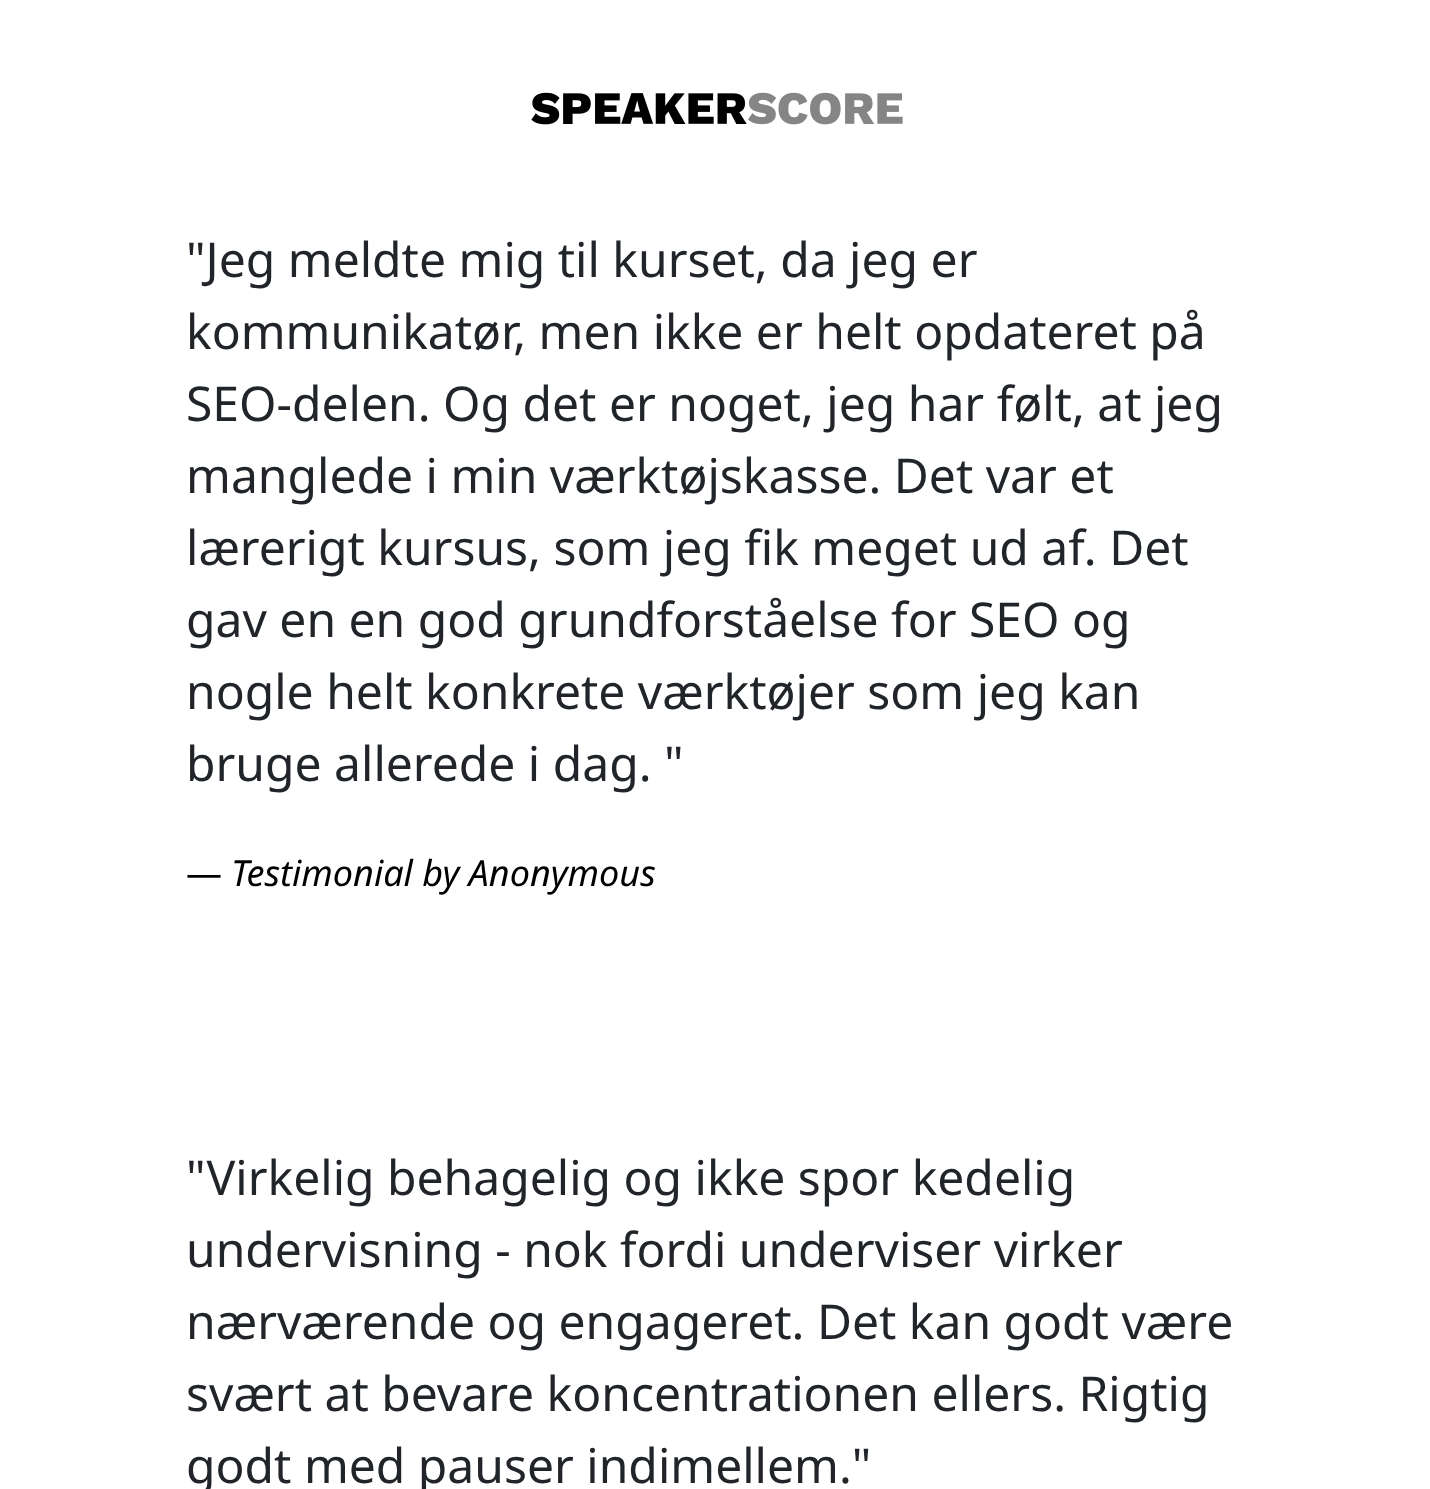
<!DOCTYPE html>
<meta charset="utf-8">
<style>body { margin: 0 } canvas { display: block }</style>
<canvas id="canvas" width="1430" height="1489"></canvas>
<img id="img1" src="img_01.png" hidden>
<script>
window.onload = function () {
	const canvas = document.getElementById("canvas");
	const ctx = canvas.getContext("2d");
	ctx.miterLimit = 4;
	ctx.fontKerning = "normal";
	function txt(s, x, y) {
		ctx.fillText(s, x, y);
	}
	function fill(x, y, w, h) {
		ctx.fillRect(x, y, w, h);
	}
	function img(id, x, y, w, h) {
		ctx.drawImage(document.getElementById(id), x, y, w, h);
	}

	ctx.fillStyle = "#FFFFFF";
	fill(0, 0, 1430, 1489);
	img("img1", 531, 92, 372, 33);
	ctx.font = "48px Noto Sans";
	ctx.fillStyle = "#212529";
	txt("\"Jeg meldte mig til kurset, da jeg er", 186, 277);
	txt("kommunikatør, men ikke er helt opdateret på", 186, 349);
	txt("SEO-delen. Og det er noget, jeg har følt, at jeg", 186, 421);
	txt("manglede i min værktøjskasse. Det var et", 186, 493);
	txt("lærerigt kursus, som jeg fik meget ud af. Det", 186, 565);
	txt("gav en en god grundforståelse for SEO og", 186, 637);
	txt("nogle helt konkrete værktøjer som jeg kan", 186, 709);
	txt("bruge allerede i dag. \"", 186, 781);
	ctx.font = "36px Noto Sans";
	ctx.fillStyle = "#000000";
	txt("—", 186, 886);
	ctx.font = "italic 36px Noto Sans";
	txt("Testimonial by Anonymous", 231, 886);
	ctx.font = "48px Noto Sans";
	ctx.fillStyle = "#212529";
	txt("\"Virkelig behagelig og ikke spor kedelig", 186, 1195);
	txt("undervisning - nok fordi underviser virker", 186, 1267);
	txt("nærværende og engageret. Det kan godt være", 186, 1339);
	txt("svært at bevare koncentrationen ellers. Rigtig", 186, 1411);
	txt("godt med pauser indimellem.\"", 186, 1483);
};
</script>
